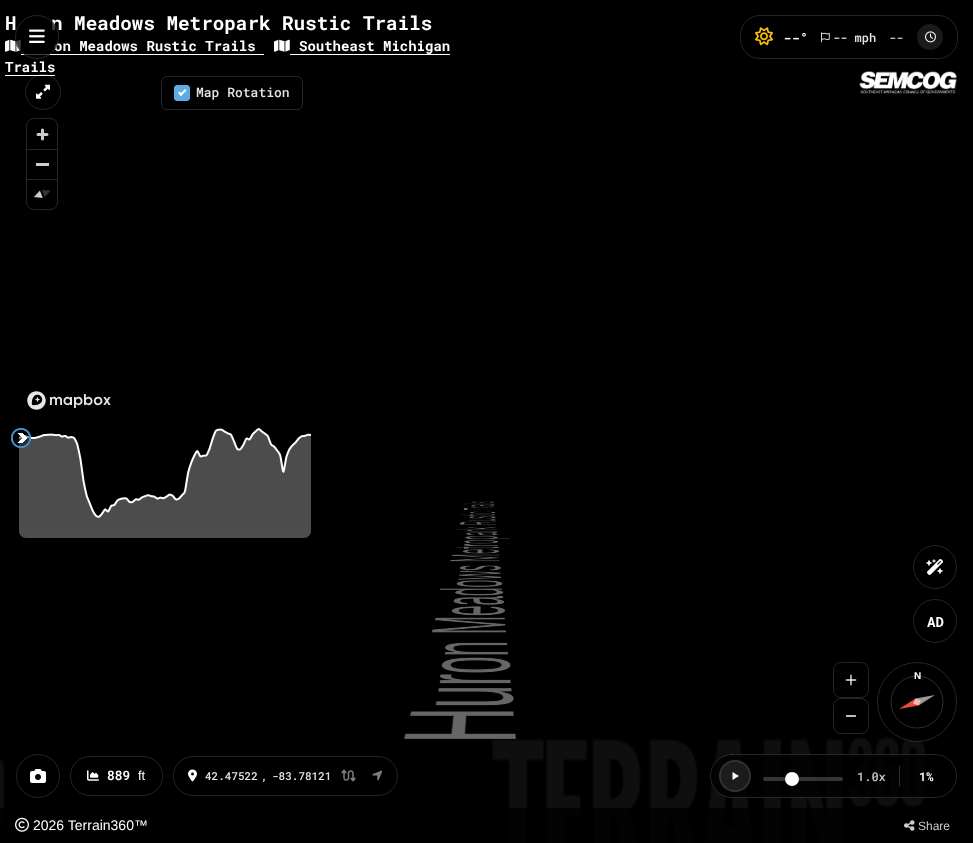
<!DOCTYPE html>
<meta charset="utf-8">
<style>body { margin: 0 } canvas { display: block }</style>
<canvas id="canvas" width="973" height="843"></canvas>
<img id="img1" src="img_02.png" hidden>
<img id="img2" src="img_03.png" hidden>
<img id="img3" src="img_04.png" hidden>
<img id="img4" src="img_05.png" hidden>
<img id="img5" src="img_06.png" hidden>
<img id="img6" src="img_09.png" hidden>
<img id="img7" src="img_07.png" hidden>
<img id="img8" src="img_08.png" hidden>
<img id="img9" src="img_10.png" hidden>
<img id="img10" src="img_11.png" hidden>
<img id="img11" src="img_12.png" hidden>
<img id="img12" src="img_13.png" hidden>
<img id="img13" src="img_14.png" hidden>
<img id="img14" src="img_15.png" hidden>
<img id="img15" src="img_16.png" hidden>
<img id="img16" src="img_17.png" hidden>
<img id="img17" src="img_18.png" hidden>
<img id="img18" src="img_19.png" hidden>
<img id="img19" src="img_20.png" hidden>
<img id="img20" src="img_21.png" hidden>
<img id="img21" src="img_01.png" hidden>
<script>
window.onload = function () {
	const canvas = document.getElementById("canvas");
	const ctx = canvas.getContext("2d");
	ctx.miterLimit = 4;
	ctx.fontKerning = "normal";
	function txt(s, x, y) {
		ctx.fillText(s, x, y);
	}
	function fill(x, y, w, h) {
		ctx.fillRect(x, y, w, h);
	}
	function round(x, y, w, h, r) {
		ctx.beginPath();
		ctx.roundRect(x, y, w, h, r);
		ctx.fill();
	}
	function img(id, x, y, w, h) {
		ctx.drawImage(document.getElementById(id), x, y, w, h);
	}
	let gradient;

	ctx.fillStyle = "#000000";
	fill(0, 0, 973, 843);
	img("img1", 274, 39, 16, 13);
	ctx.fillStyle = "#FFFFFF";
	fill(290, 54, 160, 1);
	ctx.beginPath();
	ctx.arc(43, 92, 17.5, 0, Math.PI * 2);
	ctx.strokeStyle = "#262626";
	ctx.stroke();
	fill(5, 75, 50, 1);
	img("img1", 5, 39, 16, 13);
	fill(21, 54, 243, 1);
	img("img2", 36, 84, 14, 15);
	ctx.beginPath();
	ctx.roundRect(161.5, 76.5, 141, 33, 5.5);
	ctx.stroke();
	ctx.fillStyle = "#5DADE2";
	ctx.beginPath();
	ctx.roundRect(174.5, 85.5, 15, 15, 2.5);
	ctx.fill();
	ctx.strokeStyle = "#5DADE2";
	ctx.stroke();
	ctx.fillStyle = "#FFFFFF";
	ctx.beginPath();
	ctx.moveTo(185, 89);
	ctx.lineTo(186.5, 90.5);
	ctx.lineTo(181, 96);
	ctx.lineTo(179.5, 94.5);
	ctx.closePath();
	ctx.fill();
	ctx.beginPath();
	ctx.moveTo(179.5, 91.5);
	ctx.lineTo(182.5, 94.5);
	ctx.lineTo(181, 96);
	ctx.lineTo(178, 93);
	ctx.closePath();
	ctx.fill();
	ctx.beginPath();
	ctx.roundRect(26.5, 118.5, 31, 91, 7.5);
	ctx.strokeStyle = "#262626";
	ctx.stroke();
	img("img3", 36, 128, 13, 13);
	ctx.fillStyle = "#262626";
	fill(27, 149, 30, 1);
	ctx.fillStyle = "#CCCCCC";
	fill(36, 163, 13, 3);
	ctx.fillStyle = "#262626";
	fill(27, 179, 30, 1);
	img("img4", 34, 189, 17, 9);
	img("img5", 27, 391, 84, 19);
	img("img6", 0, 501, 925, 342);
	img("img7", 19, 428, 292, 100);
	gradient = ctx.createRadialGradient(21, 438, 0, 21, 438, 14);
	gradient.addColorStop(0.55, "rgba(0, 0, 0, 0.4)");
	gradient.addColorStop(0.6, "#428BCA");
	gradient.addColorStop(0.7, "#428BCA");
	gradient.addColorStop(0.75, "rgba(66, 139, 202, 0)");
	ctx.fillStyle = gradient;
	fill(11, 428, 20, 20);
	gradient = ctx.createLinearGradient(27, 433, 22, 438);
	gradient.addColorStop(0, "rgba(0, 0, 0, 0)");
	gradient.addColorStop(0.45, "rgba(255, 255, 255, 0)");
	gradient.addColorStop(0.5, "#FFFFFF");
	gradient.addColorStop(1, "#FFFFFF");
	ctx.fillStyle = gradient;
	fill(22, 433, 5, 5);
	gradient = ctx.createLinearGradient(27, 443, 22, 438);
	gradient.addColorStop(0, "#2E2E2E");
	gradient.addColorStop(0.45, "#2E2E2E");
	gradient.addColorStop(0.5, "#FFFFFF");
	gradient.addColorStop(1, "#FFFFFF");
	ctx.fillStyle = gradient;
	fill(22, 438, 5, 5);
	gradient = ctx.createLinearGradient(17, 438, 22, 443);
	gradient.addColorStop(0, "rgba(0, 0, 0, 0)");
	gradient.addColorStop(0.49, "rgba(255, 255, 255, 0)");
	gradient.addColorStop(0.55, "#FFFFFF");
	gradient.addColorStop(1, "#FFFFFF");
	ctx.fillStyle = gradient;
	fill(17, 438, 5, 5);
	gradient = ctx.createLinearGradient(17, 438, 22, 433);
	gradient.addColorStop(0, "rgba(0, 0, 0, 0)");
	gradient.addColorStop(0.49, "rgba(255, 255, 255, 0)");
	gradient.addColorStop(0.55, "#FFFFFF");
	gradient.addColorStop(1, "#FFFFFF");
	ctx.fillStyle = gradient;
	fill(17, 433, 5, 5);
	ctx.fillStyle = "#4D4D4D";
	ctx.beginPath();
	ctx.roundRect(19, 528, 292, 10, [0, 0, 7, 7]);
	ctx.fill();
	img("img8", 859, 71, 98, 23);
	ctx.beginPath();
	ctx.roundRect(833.5, 662.5, 35, 35, 7.5);
	ctx.stroke();
	img("img9", 845, 674, 12, 12);
	ctx.beginPath();
	ctx.roundRect(833.5, 698.5, 35, 35, 7.5);
	ctx.stroke();
	ctx.beginPath();
	ctx.moveTo(846.5, 716);
	ctx.lineTo(855.5, 716);
	ctx.strokeStyle = "#FFFFFF";
	ctx.lineWidth = 1.3;
	ctx.lineCap = "round";
	ctx.stroke();
	ctx.fillStyle = "rgba(0, 0, 0, 0.75)";
	ctx.beginPath();
	ctx.arc(917, 702, 40, 0, Math.PI * 2);
	ctx.fill();
	ctx.beginPath();
	ctx.arc(917, 702, 39.5, 0, Math.PI * 2);
	ctx.strokeStyle = "rgba(255, 255, 255, 0.15)";
	ctx.lineWidth = 1;
	ctx.stroke();
	round(710, 754, 247, 44, 22);
	ctx.beginPath();
	ctx.roundRect(710.5, 754.5, 246, 43, 21.5);
	ctx.stroke();
	ctx.fillStyle = "rgba(255, 255, 255, 0.1)";
	ctx.beginPath();
	ctx.arc(735, 776, 16, 0, Math.PI * 2);
	ctx.fill();
	ctx.fillStyle = "#FFFFFF";
	ctx.beginPath();
	ctx.moveTo(732.5, 772);
	ctx.lineTo(739, 776);
	ctx.lineTo(732.5, 780);
	ctx.closePath();
	ctx.fill();
	ctx.beginPath();
	ctx.moveTo(720, 776);
	ctx.bezierCurveTo(720, 767.5, 726.5, 761, 735, 761);
	ctx.bezierCurveTo(743.5, 761, 750, 767.5, 750, 776);
	ctx.bezierCurveTo(750, 784.5, 743.5, 791, 735, 791);
	ctx.bezierCurveTo(726.5, 791, 720, 784.5, 720, 776);
	ctx.closePath();
	ctx.strokeStyle = "rgba(255, 255, 255, 0.1)";
	ctx.lineWidth = 2;
	ctx.lineCap = "butt";
	ctx.stroke();
	ctx.fillStyle = "rgba(255, 255, 255, 0.2)";
	round(763, 777, 80, 4, 2);
	ctx.fillStyle = "rgba(0, 0, 0, 0.3)";
	ctx.filter = "blur(1.5px)";
	ctx.beginPath();
	ctx.roundRect(785, 773, 14, 14, 7);
	ctx.fill();
	ctx.filter = "none";
	ctx.fillStyle = "#FFFFFF";
	ctx.beginPath();
	ctx.arc(792, 779, 7, 0, Math.PI * 2);
	ctx.fill();
	ctx.fillStyle = "#333333";
	fill(899, 766, 1, 20);
	ctx.fillStyle = "rgba(0, 0, 0, 0.8)";
	fill(0, 808, 843, 35);
	img("img10", 15, 817, 14, 15);
	img("img11", 904, 820, 11, 11);
	ctx.beginPath();
	ctx.roundRect(740.5, 15.5, 217, 43, 19.5);
	ctx.strokeStyle = "#262626";
	ctx.lineWidth = 1;
	ctx.stroke();
	img("img12", 755, 27, 18, 19);
	img("img13", 821, 32, 9, 11);
	ctx.fillStyle = "#1A1A1A";
	ctx.beginPath();
	ctx.arc(930, 37, 13, 0, Math.PI * 2);
	ctx.fill();
	img("img14", 925, 31, 11, 12);
	ctx.beginPath();
	ctx.arc(935, 567, 21.5, 0, Math.PI * 2);
	ctx.stroke();
	img("img15", 926, 559, 17, 16);
	ctx.beginPath();
	ctx.arc(935, 621, 21.5, 0, Math.PI * 2);
	ctx.stroke();
	ctx.beginPath();
	ctx.arc(38, 776, 21.5, 0, Math.PI * 2);
	ctx.stroke();
	img("img16", 30, 769, 16, 14);
	ctx.beginPath();
	ctx.roundRect(70.5, 756.5, 92, 39, 19.5);
	ctx.stroke();
	img("img17", 87, 770, 12, 11);
	ctx.beginPath();
	ctx.roundRect(173.5, 756.5, 224, 39, 19.5);
	ctx.stroke();
	img("img18", 188, 769, 9, 13);
	img("img19", 341, 769, 15, 13);
	img("img20", 372, 770, 11, 11);
	ctx.font = "bold 19.25px Roboto Mono";
	ctx.fillStyle = "#FFFFFF";
	txt("H", 5, 30);
	txt("n Meadows Metropark Rustic Trails", 51, 30);
	ctx.font = "bold 14px Roboto Mono";
	txt("Southeast Michigan", 299, 51);
	txt("Trails", 5, 72);
	txt("on Meadows Rustic Trails", 54, 51);
	ctx.fillStyle = "rgba(0, 0, 0, 0.75)";
	ctx.beginPath();
	ctx.arc(37, 37, 22, 0, Math.PI * 2);
	ctx.fill();
	ctx.beginPath();
	ctx.arc(37, 37, 21.5, 0, Math.PI * 2);
	ctx.strokeStyle = "rgba(255, 255, 255, 0.15)";
	ctx.stroke();
	img("img21", 29, 29, 16, 14);
	ctx.font = "500 13px Roboto Mono";
	ctx.fillStyle = "#E6E6E6";
	txt("Map Rotation", 196, 97);
	ctx.font = "bold 10px Liberation Sans";
	ctx.fillStyle = "#FFFFFF";
	txt("N", 914, 679);
	ctx.beginPath();
	ctx.arc(917, 702, 26, 0, Math.PI * 2);
	ctx.strokeStyle = "rgba(255, 255, 255, 0.2)";
	ctx.lineWidth = 0.9;
	ctx.stroke();
	ctx.fillStyle = "#E74C3C";
	ctx.beginPath();
	ctx.moveTo(899, 709);
	ctx.lineTo(915.5, 698.5);
	ctx.lineTo(921, 700.5);
	ctx.lineTo(918.5, 705.5);
	ctx.closePath();
	ctx.fill();
	ctx.fillStyle = "rgba(255, 255, 255, 0.6)";
	ctx.beginPath();
	ctx.moveTo(935, 695);
	ctx.lineTo(915.5, 698.5);
	ctx.lineTo(913, 703.5);
	ctx.lineTo(918.5, 705.5);
	ctx.closePath();
	ctx.fill();
	ctx.font = "500 12px Roboto Mono";
	ctx.fillStyle = "#CCCCCC";
	txt("1.0x", 857, 781);
	ctx.font = "600 12px Roboto Mono";
	ctx.fillStyle = "#FFFFFF";
	txt("1%", 919, 781);
	ctx.font = "14px Liberation Sans";
	txt("2026 Terrain360™", 33, 830);
	ctx.font = "12px Liberation Sans";
	ctx.fillStyle = "#CCCCCC";
	txt("Share", 918, 830);
	ctx.font = "600 14px Roboto Mono";
	ctx.fillStyle = "#FFFFFF";
	txt("--°", 783, 43);
	ctx.font = "500 12px Roboto Mono";
	ctx.fillStyle = "#E6E6E6";
	txt("-- mph", 833, 42);
	ctx.fillStyle = "#D9D9D9";
	txt("--", 889, 42);
	ctx.font = "bold 14px Roboto Mono";
	ctx.fillStyle = "#FFFFFF";
	txt("AD", 927, 627);
	ctx.font = "600 13px Roboto Mono";
	txt("889", 107, 780);
	ctx.font = "13px Liberation Sans";
	txt("ft", 138, 780);
	ctx.font = "500 11px Roboto Mono";
	ctx.fillStyle = "#E6E6E6";
	txt("42.47522", 205, 780);
	txt(",", 261, 780);
	txt("-83.78121", 272, 780);
};
</script>
